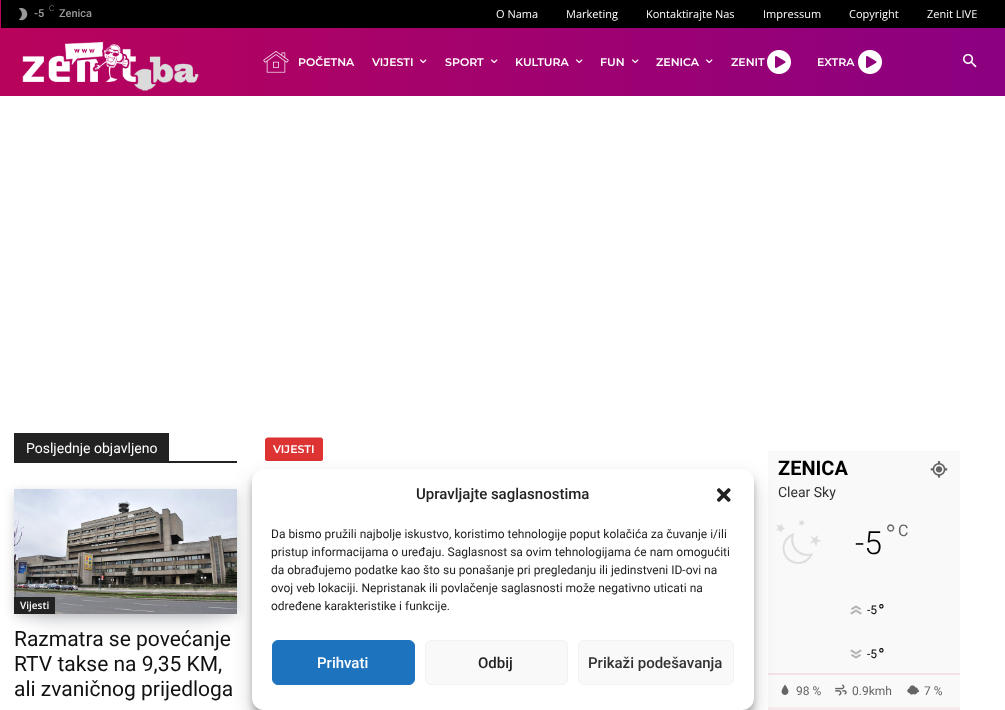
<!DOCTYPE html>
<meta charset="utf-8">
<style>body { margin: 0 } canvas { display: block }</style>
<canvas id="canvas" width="1005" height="710"></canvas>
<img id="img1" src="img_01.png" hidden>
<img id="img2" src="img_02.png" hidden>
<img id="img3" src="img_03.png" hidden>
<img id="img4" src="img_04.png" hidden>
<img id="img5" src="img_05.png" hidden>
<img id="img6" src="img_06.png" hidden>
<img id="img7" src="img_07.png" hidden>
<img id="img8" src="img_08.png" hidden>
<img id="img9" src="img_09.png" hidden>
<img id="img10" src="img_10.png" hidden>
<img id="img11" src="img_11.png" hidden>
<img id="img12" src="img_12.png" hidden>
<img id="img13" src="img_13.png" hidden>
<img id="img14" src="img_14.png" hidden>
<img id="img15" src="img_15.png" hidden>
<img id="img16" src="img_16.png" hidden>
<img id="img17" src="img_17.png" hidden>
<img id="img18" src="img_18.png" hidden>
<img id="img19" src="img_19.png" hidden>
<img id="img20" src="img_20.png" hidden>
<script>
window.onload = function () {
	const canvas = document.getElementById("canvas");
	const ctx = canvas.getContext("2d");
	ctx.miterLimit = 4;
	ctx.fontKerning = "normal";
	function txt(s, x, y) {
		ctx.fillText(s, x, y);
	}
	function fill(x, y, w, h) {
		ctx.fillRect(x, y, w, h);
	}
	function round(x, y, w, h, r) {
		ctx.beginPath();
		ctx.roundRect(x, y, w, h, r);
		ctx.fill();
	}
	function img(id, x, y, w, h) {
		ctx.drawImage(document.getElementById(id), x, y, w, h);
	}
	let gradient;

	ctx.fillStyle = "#FFFFFF";
	fill(0, 0, 1005, 710);
	gradient = ctx.createLinearGradient(0, 48, 1005, 48);
	gradient.addColorStop(0, "#B9035B");
	gradient.addColorStop(1, "#8B0081");
	ctx.fillStyle = gradient;
	fill(0, 0, 1005, 96);
	ctx.fillStyle = "#000000";
	fill(1, 0, 1004, 28);
	img("img1", 18, 7, 10, 14);
	img("img2", 22, 42, 177, 49);
	img("img3", 263, 51, 26, 22);
	img("img4", 420, 59, 7, 5);
	img("img5", 491, 59, 7, 5);
	img("img6", 576, 59, 7, 5);
	img("img7", 632, 59, 7, 5);
	img("img8", 706, 59, 7, 5);
	img("img9", 767, 50, 24, 24);
	img("img10", 858, 50, 24, 24);
	img("img11", 963, 53, 14, 15);
	ctx.fillStyle = "#222222";
	fill(14, 461, 223, 2);
	fill(14, 433, 155, 28);
	ctx.fillStyle = "rgba(7, 10, 25, 0.2)";
	ctx.filter = "blur(13.5px)";
	ctx.beginPath();
	ctx.rect(34, 531, 183, 85);
	ctx.fill();
	ctx.filter = "none";
	ctx.filter = "blur(6px)";
	ctx.beginPath();
	ctx.rect(15, 493, 221, 123);
	ctx.fill();
	ctx.filter = "none";
	img("img12", 14, 489, 223, 125);
	ctx.fillStyle = "#222222";
	fill(14, 597, 41, 17);
	ctx.fillStyle = "#DD3333";
	ctx.beginPath();
	ctx.moveTo(267, 438);
	ctx.lineTo(321, 438);
	ctx.bezierCurveTo(322, 438, 323, 439, 323, 440);
	ctx.lineTo(323, 459);
	ctx.bezierCurveTo(323, 460, 322, 461, 321, 461);
	ctx.lineTo(267, 461);
	ctx.bezierCurveTo(266, 461, 265, 460, 265, 459);
	ctx.lineTo(265, 440);
	ctx.bezierCurveTo(265, 439, 266, 438, 267, 438);
	ctx.closePath();
	ctx.fill();
	ctx.beginPath();
	ctx.moveTo(267.5, 438);
	ctx.lineTo(321, 438);
	ctx.bezierCurveTo(322, 438, 322.5, 439, 322.5, 440);
	ctx.lineTo(322, 459);
	ctx.bezierCurveTo(322, 459.5, 321.5, 460, 320.5, 460);
	ctx.lineTo(267, 460);
	ctx.bezierCurveTo(266, 460, 265.5, 459.5, 265.5, 459);
	ctx.lineTo(266, 440);
	ctx.bezierCurveTo(266, 439, 266.5, 438, 267.5, 438);
	ctx.closePath();
	ctx.strokeStyle = "#DD3333";
	ctx.stroke();
	ctx.fillStyle = "#F9F9F9";
	fill(768, 451, 192, 256);
	img("img13", 930, 461, 18, 17);
	img("img14", 776, 520, 45, 44);
	img("img15", 850, 605, 12, 10);
	img("img16", 850, 649, 12, 10);
	ctx.fillStyle = "#F3E2E4";
	fill(768, 673, 192, 2);
	img("img17", 781, 684, 8, 11);
	img("img18", 835, 684, 12, 12);
	img("img19", 907, 685, 12, 10);
	ctx.fillStyle = "#F5EBED";
	fill(768, 707, 192, 3);
	ctx.fillStyle = "rgba(0, 0, 0, 0.23)";
	ctx.filter = "blur(3px)";
	ctx.beginPath();
	ctx.roundRect(252, 475, 502, 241, 12);
	ctx.fill();
	ctx.filter = "none";
	ctx.fillStyle = "rgba(0, 0, 0, 0.19)";
	ctx.filter = "blur(10px)";
	ctx.beginPath();
	ctx.roundRect(252, 479, 502, 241, 12);
	ctx.fill();
	ctx.filter = "none";
	ctx.fillStyle = "#FFFFFF";
	round(252, 469, 502, 241, 12);
	img("img20", 716, 488, 15, 14);
	ctx.fillStyle = "#1E73BE";
	ctx.beginPath();
	ctx.roundRect(272.5, 640.5, 142, 44, 5.5);
	ctx.fill();
	ctx.strokeStyle = "#1E73BE";
	ctx.stroke();
	ctx.fillStyle = "#F9F9F9";
	ctx.beginPath();
	ctx.roundRect(425.5, 640.5, 142, 44, 5.5);
	ctx.fill();
	ctx.strokeStyle = "#F2F2F2";
	ctx.stroke();
	ctx.beginPath();
	ctx.roundRect(578.5, 640.5, 155, 44, 5.5);
	ctx.fill();
	ctx.stroke();
	ctx.font = "600 11px Roboto";
	ctx.fillStyle = "#999999";
	txt("-5", 34, 17);
	ctx.font = "300 8px Roboto";
	txt("C", 49, 11);
	ctx.font = "500 11px Roboto";
	txt("Zenica", 59, 17);
	ctx.font = "11px Open Sans";
	ctx.fillStyle = "#FFFFFF";
	txt("O Nama", 496, 18);
	txt("Marketing", 566, 18);
	txt("Kontaktirajte Nas", 646, 18);
	txt("Impressum", 763, 18);
	txt("Copyright", 849, 18);
	txt("Zenit LIVE", 927, 18);
	ctx.font = "600 11px Montserrat";
	txt("POČETNA", 298, 66);
	txt("VIJESTI", 372, 66);
	txt("SPORT", 445, 66);
	txt("KULTURA", 515, 66);
	txt("FUN", 600, 66);
	txt("ZENICA", 656, 66);
	txt("ZENIT", 731, 66);
	txt("EXTRA", 817, 66);
	ctx.font = "14px Roboto";
	txt("Posljednje objavljeno", 26, 453);
	ctx.font = "600 10px Open Sans";
	txt("Vijesti", 20, 609);
	ctx.font = "21px Roboto";
	ctx.fillStyle = "#111111";
	txt("Razmatra se povećanje", 14, 646);
	txt("RTV takse na 9,35 KM,", 14, 671);
	txt("ali zvaničnog prijedloga", 14, 696);
	ctx.font = "600 11px Montserrat";
	ctx.fillStyle = "#FFFFFF";
	txt("VIJESTI", 273, 453);
	ctx.font = "bold 20px Roboto";
	ctx.fillStyle = "#000000";
	txt("ZENICA", 778, 475);
	ctx.font = "14px Roboto";
	ctx.fillStyle = "#323232";
	txt("Clear Sky", 778, 497);
	ctx.font = "300 32px Roboto";
	ctx.fillStyle = "#000000";
	txt("-5", 855, 554);
	ctx.font = "300 30px Roboto";
	ctx.fillStyle = "#646464";
	txt("°", 885, 546);
	ctx.font = "16px Roboto";
	txt("C", 898, 536);
	ctx.font = "12px Roboto";
	ctx.fillStyle = "#000000";
	txt("-5", 867, 614);
	ctx.font = "18px Roboto";
	txt("°", 878, 617);
	ctx.font = "12px Roboto";
	txt("-5", 867, 658);
	ctx.font = "18px Roboto";
	txt("°", 878, 661);
	ctx.font = "12px Roboto";
	ctx.fillStyle = "#646464";
	txt("98 %", 796, 695);
	txt("0.9kmh", 852, 695);
	txt("7 %", 924, 695);
	ctx.font = "500 15px Roboto";
	ctx.fillStyle = "#222222";
	txt("Upravljajte saglasnostima", 416, 499);
	ctx.font = "12px Roboto";
	txt("Da bismo pružili najbolje iskustvo, koristimo tehnologije poput kolačića za čuvanje i/ili", 271, 538);
	txt("pristup informacijama o uređaju. Saglasnost sa ovim tehnologijama će nam omogućiti", 271, 556);
	txt("da obrađujemo podatke kao što su ponašanje pri pregledanju ili jedinstveni ID-ovi na", 271, 574);
	txt("ovoj veb lokaciji. Nepristanak ili povlačenje saglasnosti može negativno uticati na", 271, 592);
	txt("određene karakteristike i funkcije.", 271, 610);
	ctx.font = "500 15px Roboto";
	ctx.fillStyle = "#FFFFFF";
	txt("Prihvati", 317, 668);
	ctx.fillStyle = "#222222";
	txt("Odbij", 478, 668);
	ctx.fillStyle = "#323232";
	txt("Prikaži podešavanja", 588, 668);
};
</script>
